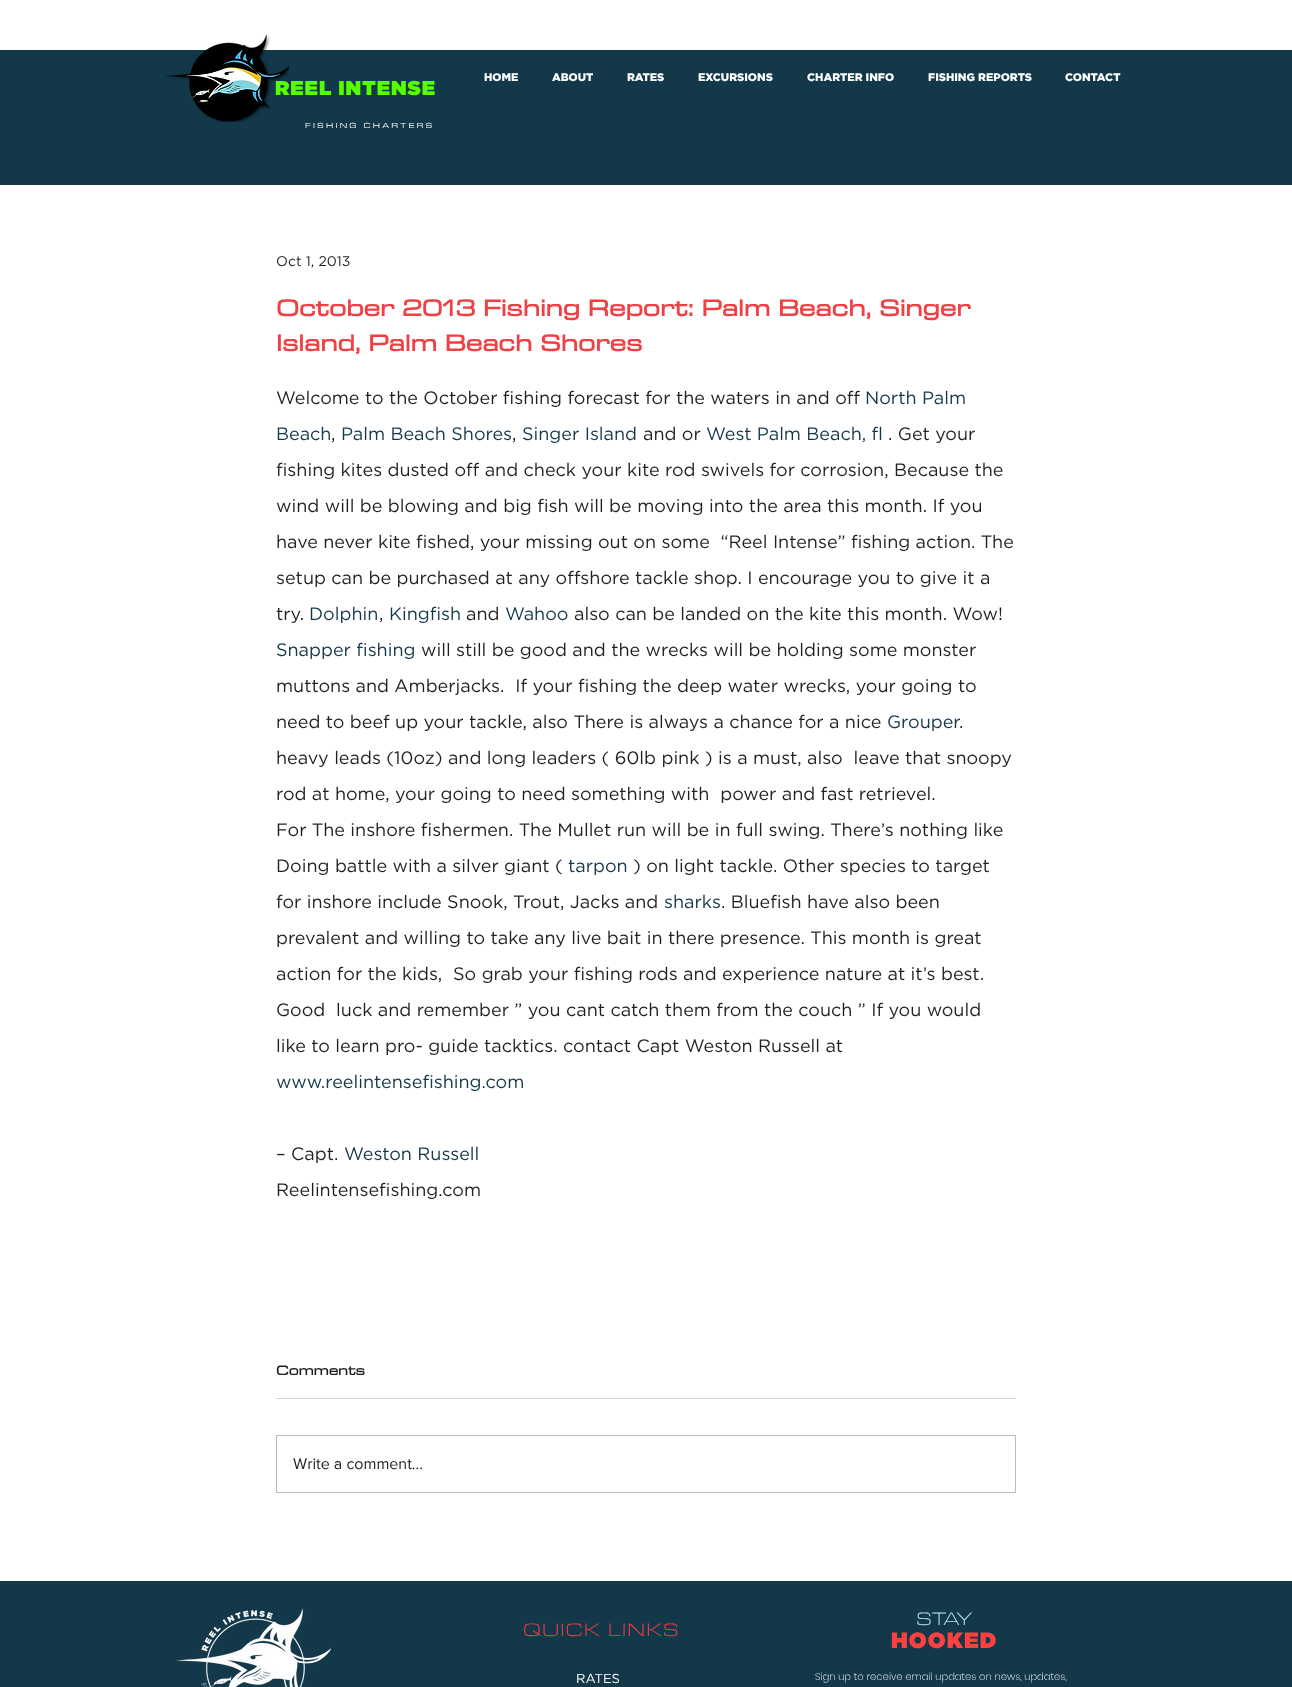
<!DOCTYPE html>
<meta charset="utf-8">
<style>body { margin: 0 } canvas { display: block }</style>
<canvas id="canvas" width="1292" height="1687"></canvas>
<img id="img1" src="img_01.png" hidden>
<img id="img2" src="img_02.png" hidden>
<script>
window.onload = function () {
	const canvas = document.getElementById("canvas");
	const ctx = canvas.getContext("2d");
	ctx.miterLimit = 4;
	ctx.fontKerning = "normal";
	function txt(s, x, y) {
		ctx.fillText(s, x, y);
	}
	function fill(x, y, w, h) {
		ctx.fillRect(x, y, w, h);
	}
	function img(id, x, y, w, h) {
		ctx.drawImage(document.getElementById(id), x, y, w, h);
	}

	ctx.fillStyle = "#FFFFFF";
	fill(0, 0, 1292, 1687);
	ctx.fillStyle = "#13384A";
	fill(0, 50, 1292, 135);
	img("img1", 165, 34, 124, 88);
	ctx.fillStyle = "#D3D2D2";
	fill(276, 1398, 740, 1);
	ctx.strokeStyle = "#BDBCBC";
	ctx.strokeRect(276.5, 1435.5, 739, 57);
	ctx.fillStyle = "#13384A";
	fill(0, 1581, 1292, 106);
	img("img2", 176, 1608, 155, 79);
	ctx.font = "900 11px Gotham";
	ctx.fillStyle = "#FFFFFF";
	txt("HOME", 484, 81);
	txt("ABOUT", 552, 81);
	txt("RATES", 627, 81);
	txt("EXCURSIONS", 698, 81);
	txt("CHARTER INFO", 807, 81);
	txt("FISHING REPORTS", 928, 81);
	txt("CONTACT", 1065, 81);
	ctx.letterSpacing = "1px";
	ctx.font = "20px 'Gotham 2'";
	ctx.fillStyle = "#55FF00";
	txt("REEL INTENSE", 275, 95);
	ctx.letterSpacing = "2.25px";
	ctx.font = "9px 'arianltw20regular'";
	ctx.fillStyle = "#FFFFFF";
	txt("FISHING CHARTERS", 305, 128);
	ctx.letterSpacing = "0px";
	ctx.font = "14px Gotham";
	ctx.fillStyle = "#231F20";
	txt("Oct 1, 2013", 276, 266);
	ctx.font = "bold 28px 'arianltw20regular'";
	ctx.fillStyle = "#EF4044";
	txt("October 2013 Fishing Report: Palm Beach, Singer", 276, 316);
	txt("Island, Palm Beach Shores", 276, 351);
	ctx.font = "18px Gotham";
	ctx.fillStyle = "#231F20";
	txt("Welcome to the October fishing forecast for the waters in and off", 276, 404);
	ctx.fillStyle = "#13384A";
	txt("North Palm", 865, 404);
	txt("Beach", 276, 440);
	ctx.fillStyle = "#231F20";
	txt(",", 331, 440);
	ctx.fillStyle = "#13384A";
	txt("Palm Beach Shores", 341, 440);
	ctx.fillStyle = "#231F20";
	txt(",", 512, 440);
	ctx.fillStyle = "#13384A";
	txt("Singer Island", 522, 440);
	ctx.fillStyle = "#231F20";
	txt("and or", 643, 440);
	ctx.fillStyle = "#13384A";
	txt("West Palm Beach, fl", 706, 440);
	ctx.fillStyle = "#231F20";
	txt(". Get your", 888, 440);
	txt("fishing kites dusted off and check your kite rod swivels for corrosion, Because the", 276, 476);
	txt("wind will be blowing and big fish will be moving into the area this month. If you", 276, 512);
	txt("have never kite fished, your missing out on some  “Reel Intense” fishing action. The", 276, 548);
	txt("setup can be purchased at any offshore tackle shop. I encourage you to give it a", 276, 584);
	txt("try.", 276, 620);
	ctx.fillStyle = "#13384A";
	txt("Dolphin", 309, 620);
	ctx.fillStyle = "#231F20";
	txt(",", 379, 620);
	ctx.fillStyle = "#13384A";
	txt("Kingfish", 389, 620);
	ctx.fillStyle = "#231F20";
	txt("and", 466, 620);
	ctx.fillStyle = "#13384A";
	txt("Wahoo", 505, 620);
	ctx.fillStyle = "#231F20";
	txt("also can be landed on the kite this month. Wow!", 574, 620);
	ctx.fillStyle = "#13384A";
	txt("Snapper fishing", 276, 656);
	ctx.fillStyle = "#231F20";
	txt("will still be good and the wrecks will be holding some monster", 421, 656);
	txt("muttons and Amberjacks.  If your fishing the deep water wrecks, your going to", 276, 692);
	txt("need to beef up your tackle, also There is always a chance for a nice", 276, 728);
	ctx.fillStyle = "#13384A";
	txt("Grouper", 887, 728);
	ctx.fillStyle = "#231F20";
	txt(".", 959, 728);
	txt("heavy leads (10oz) and long leaders ( 60lb pink ) is a must, also  leave that snoopy", 276, 764);
	txt("rod at home, your going to need something with  power and fast retrievel.", 276, 800);
	txt("For The inshore fishermen. The Mullet run will be in full swing. There’s nothing like", 276, 836);
	txt("Doing battle with a silver giant (", 276, 872);
	ctx.fillStyle = "#13384A";
	txt("tarpon", 568, 872);
	ctx.fillStyle = "#231F20";
	txt(") on light tackle. Other species to target", 633, 872);
	txt("for inshore include Snook, Trout, Jacks and", 276, 908);
	ctx.fillStyle = "#13384A";
	txt("sharks", 664, 908);
	ctx.fillStyle = "#231F20";
	txt(". Bluefish have also been", 721, 908);
	txt("prevalent and willing to take any live bait in there presence. This month is great", 276, 944);
	txt("action for the kids,  So grab your fishing rods and experience nature at it’s best.", 276, 980);
	txt("Good  luck and remember ” you cant catch them from the couch ” If you would", 276, 1016);
	txt("like to learn pro- guide tacktics. contact Capt Weston Russell at", 276, 1052);
	ctx.fillStyle = "#13384A";
	txt("www.reelintensefishing.com", 276, 1088);
	ctx.fillStyle = "#231F20";
	txt("– Capt.", 276, 1160);
	ctx.fillStyle = "#13384A";
	txt("Weston Russell", 344, 1160);
	ctx.fillStyle = "#231F20";
	txt("Reelintensefishing.com", 276, 1196);
	ctx.font = "bold 16px 'arianltw20regular'";
	txt("Comments", 276, 1375);
	ctx.font = "16px 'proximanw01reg'";
	txt("Write a comment...", 293, 1469);
	ctx.letterSpacing = "1.1px";
	ctx.font = "300 22px 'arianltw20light'";
	ctx.fillStyle = "#FF4040";
	txt("QUICK LINKS", 523, 1636);
	ctx.letterSpacing = "0px";
	ctx.fillStyle = "#B8E0F4";
	txt("STAY", 916, 1625);
	ctx.letterSpacing = "1.1px";
	ctx.font = "22px 'Gotham 2'";
	ctx.fillStyle = "#FF4040";
	txt("HOOKED", 891, 1648);
	ctx.letterSpacing = "0px";
	ctx.font = "13px Gotham";
	ctx.fillStyle = "#FFFFFF";
	txt("RATES", 576, 1683);
	ctx.font = "200 10px Poppins";
	txt("Sign up to receive email updates on news, updates,", 815, 1680);
};
</script>
